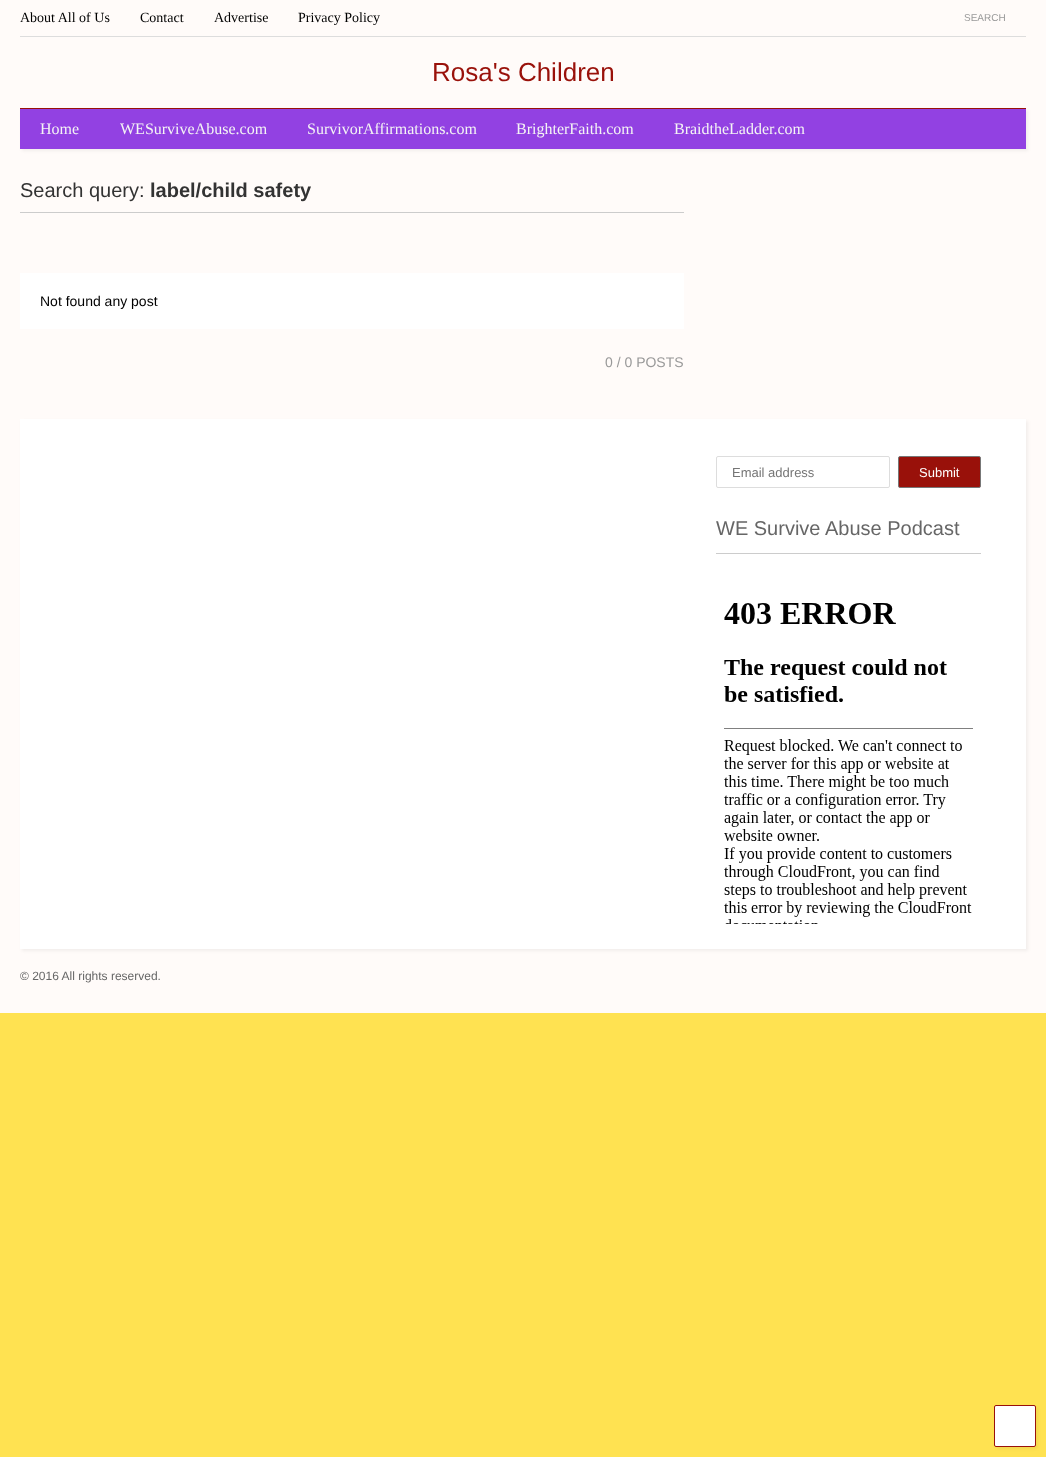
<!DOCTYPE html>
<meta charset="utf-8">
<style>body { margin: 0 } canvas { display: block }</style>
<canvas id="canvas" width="1046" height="1457"></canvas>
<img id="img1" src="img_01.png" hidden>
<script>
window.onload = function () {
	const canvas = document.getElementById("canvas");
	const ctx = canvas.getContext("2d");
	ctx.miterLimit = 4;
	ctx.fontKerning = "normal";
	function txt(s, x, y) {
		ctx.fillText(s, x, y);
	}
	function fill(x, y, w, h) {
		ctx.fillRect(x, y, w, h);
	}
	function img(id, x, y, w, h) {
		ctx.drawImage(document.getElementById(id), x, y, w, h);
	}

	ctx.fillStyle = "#FFE251";
	fill(0, 0, 1046, 1457);
	ctx.fillStyle = "#FFFBF9";
	fill(0, 0, 1046, 1013);
	ctx.fillStyle = "#DDDDDD";
	fill(20, 36, 1006, 1);
	ctx.fillStyle = "rgba(0, 0, 0, 0.05)";
	ctx.filter = "blur(1.5px)";
	ctx.beginPath();
	ctx.rect(22, 110, 1006, 41);
	ctx.fill();
	ctx.filter = "none";
	ctx.fillStyle = "#9241E2";
	fill(20, 109, 1006, 40);
	ctx.fillStyle = "#99110A";
	fill(20, 108, 1006, 1);
	ctx.fillStyle = "#CCCCCC";
	fill(20, 212, 664, 1);
	ctx.fillStyle = "#FFFFFF";
	fill(20, 273, 664, 56);
	ctx.fillStyle = "rgba(0, 0, 0, 0.05)";
	ctx.filter = "blur(1.5px)";
	ctx.beginPath();
	ctx.rect(22, 421, 1006, 530);
	ctx.fill();
	ctx.filter = "none";
	ctx.fillStyle = "#FFFFFF";
	fill(20, 419, 1006, 530);
	ctx.beginPath();
	ctx.roundRect(716.5, 456.5, 173, 31, 1.5);
	ctx.strokeStyle = "#DDDDDD";
	ctx.stroke();
	ctx.fillStyle = "#99110A";
	ctx.beginPath();
	ctx.roundRect(898.5, 456.5, 82, 31, 1.5);
	ctx.fill();
	ctx.strokeStyle = "#777777";
	ctx.stroke();
	ctx.fillStyle = "#CCCCCC";
	fill(716, 553, 265, 1);
	img("img1", 724, 603, 249, 321);
	ctx.fillStyle = "rgba(0, 0, 0, 0.05)";
	ctx.filter = "blur(1.5px)";
	ctx.beginPath();
	ctx.roundRect(996, 1407, 42, 42, 2);
	ctx.fill();
	ctx.filter = "none";
	ctx.fillStyle = "#FFFFFF";
	ctx.beginPath();
	ctx.roundRect(994.5, 1405.5, 41, 41, 1.5);
	ctx.fill();
	ctx.strokeStyle = "#99110A";
	ctx.stroke();
	ctx.font = "14px Liberation Serif";
	ctx.fillStyle = "#000000";
	txt("About All of Us", 20, 22);
	txt("Contact", 140, 22);
	txt("Advertise", 214, 22);
	txt("Privacy Policy", 298, 22);
	ctx.font = "10px Liberation Sans";
	ctx.fillStyle = "#999999";
	txt("SEARCH", 964, 21);
	ctx.font = "26px Liberation Sans";
	ctx.fillStyle = "#99110A";
	txt("Rosa's Children", 432, 81);
	ctx.font = "16px Liberation Serif";
	ctx.fillStyle = "#F4F4F4";
	txt("Home", 40, 134);
	txt("WESurviveAbuse.com", 120, 134);
	txt("SurvivorAffirmations.com", 307, 134);
	txt("BrighterFaith.com", 516, 134);
	txt("BraidtheLadder.com", 674, 134);
	ctx.font = "20px Liberation Sans";
	ctx.fillStyle = "#333333";
	txt("Search query:", 20, 197);
	ctx.font = "bold 20px Liberation Sans";
	txt("label/child safety", 150, 197);
	ctx.font = "14px Liberation Sans";
	ctx.fillStyle = "#000000";
	txt("Not found any post", 40, 306);
	ctx.fillStyle = "#999999";
	txt("0 / 0 POSTS", 605, 367);
	ctx.font = "13px Liberation Sans";
	ctx.fillStyle = "#757575";
	txt("Email address", 732, 477);
	ctx.fillStyle = "#FFFFFF";
	txt("Submit", 919, 477);
	ctx.font = "20px Liberation Sans";
	ctx.fillStyle = "#666666";
	txt("WE Survive Abuse Podcast", 716, 535);
	ctx.font = "12px Liberation Sans";
	txt("© 2016 All rights reserved.", 20, 980);
};
</script>
